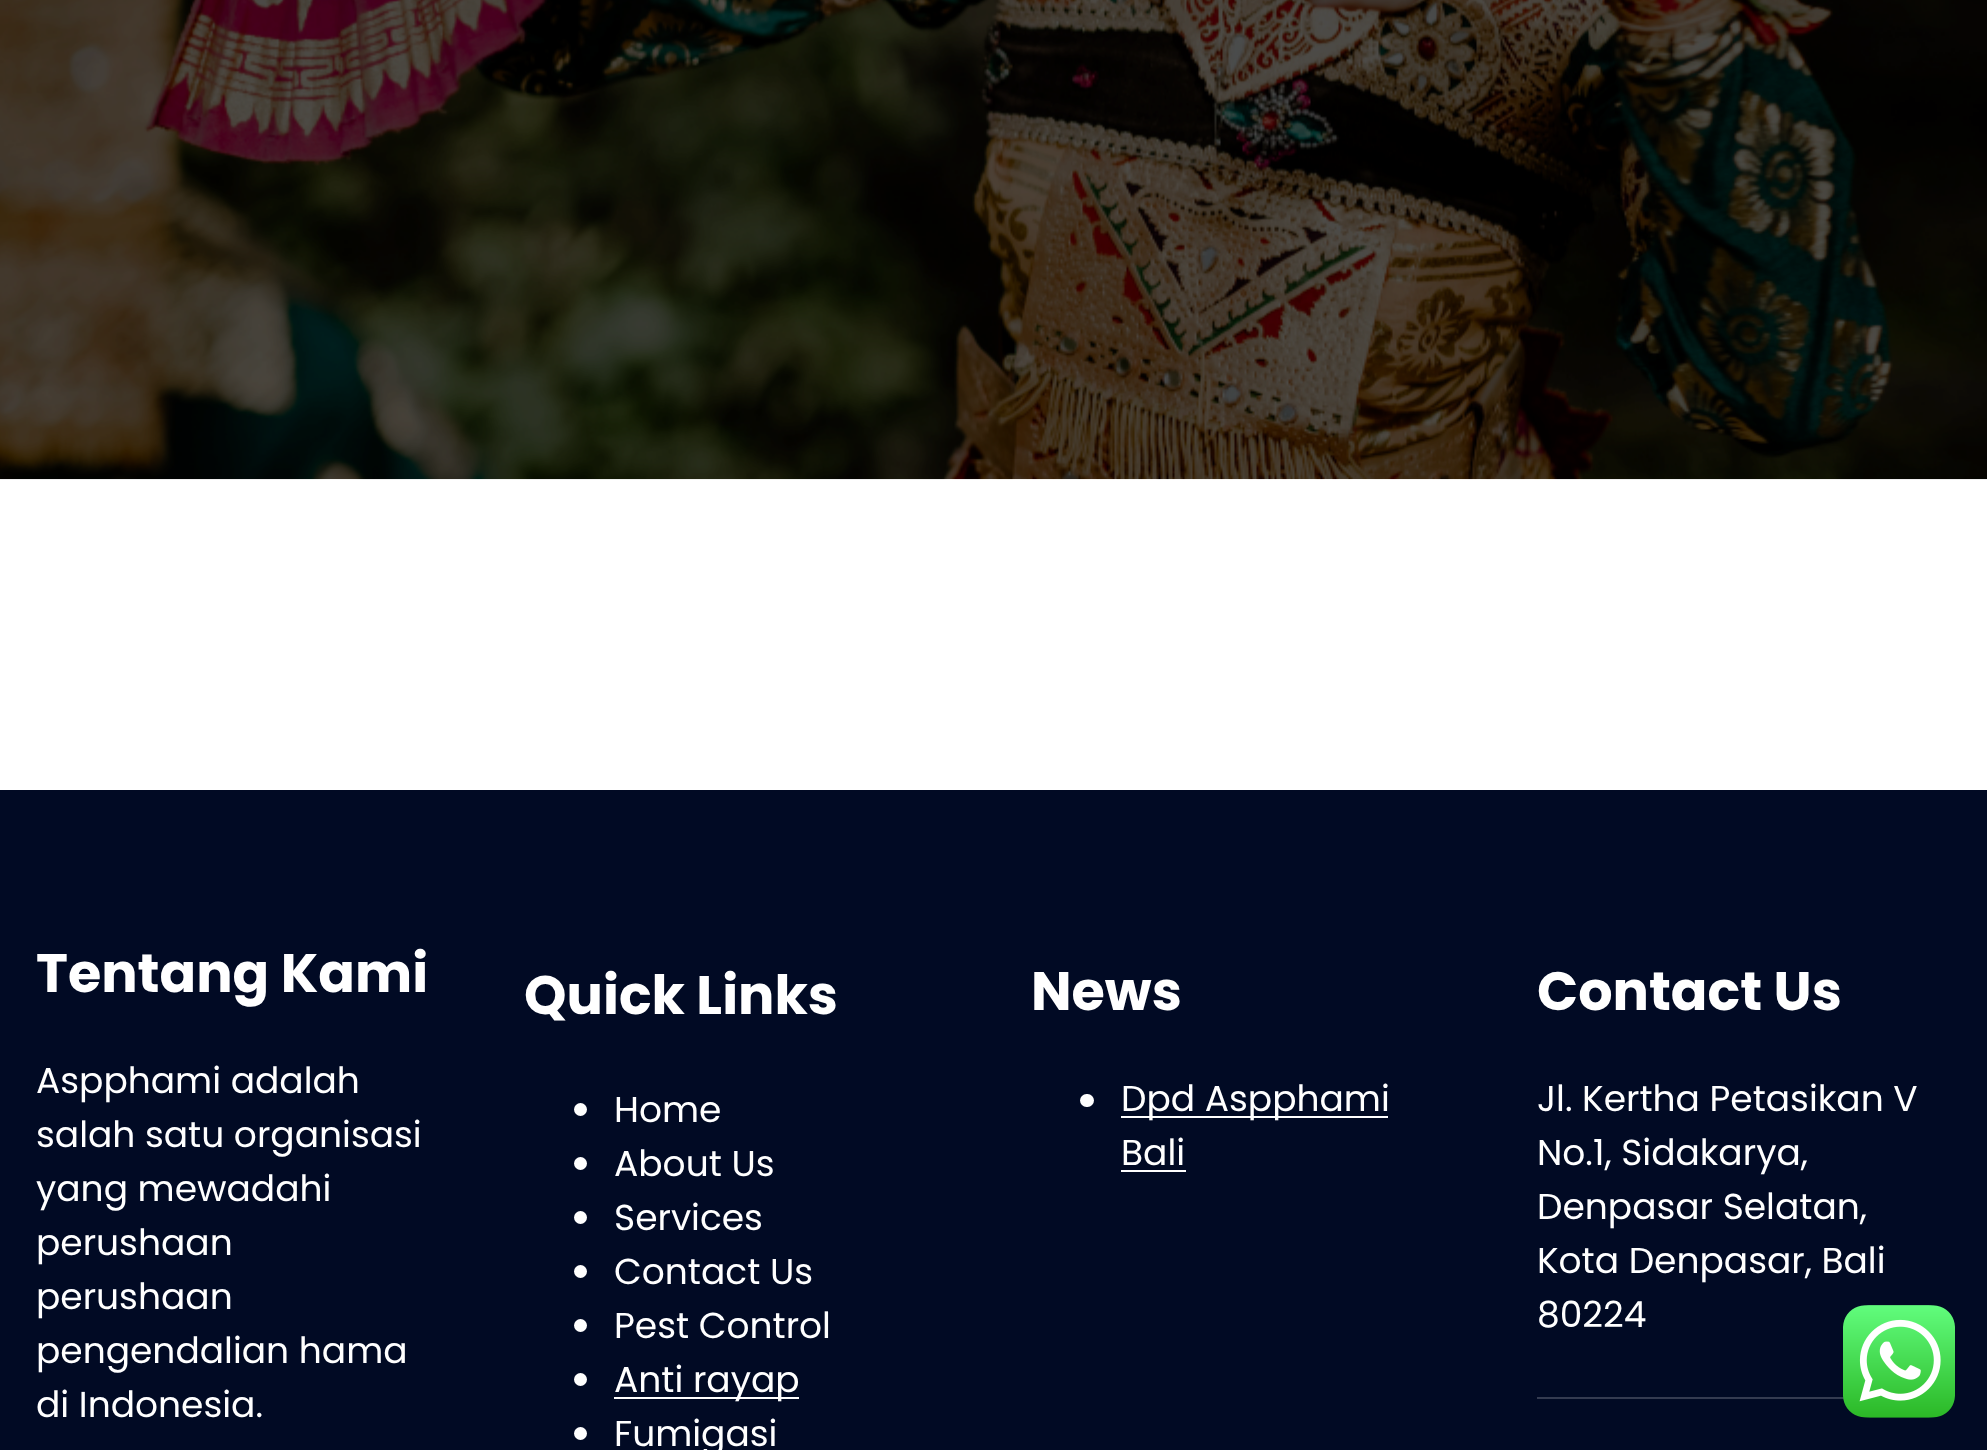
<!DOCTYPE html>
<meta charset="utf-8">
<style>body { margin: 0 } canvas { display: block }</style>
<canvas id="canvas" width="1987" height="1450"></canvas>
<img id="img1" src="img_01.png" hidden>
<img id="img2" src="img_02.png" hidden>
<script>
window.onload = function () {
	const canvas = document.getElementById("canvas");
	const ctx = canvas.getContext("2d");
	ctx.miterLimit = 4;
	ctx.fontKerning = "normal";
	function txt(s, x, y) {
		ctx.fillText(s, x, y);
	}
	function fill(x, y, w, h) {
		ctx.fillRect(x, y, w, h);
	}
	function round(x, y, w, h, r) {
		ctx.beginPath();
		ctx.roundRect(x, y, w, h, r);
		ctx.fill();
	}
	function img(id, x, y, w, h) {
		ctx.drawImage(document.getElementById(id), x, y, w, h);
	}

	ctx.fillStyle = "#FFFFFF";
	fill(0, 0, 1987, 1450);
	img("img1", 0, 0, 1987, 480);
	ctx.fillStyle = "#010A24";
	fill(0, 790, 1987, 660);
	ctx.fillStyle = "#FFFFFF";
	ctx.beginPath();
	ctx.arc(580.5, 1109.5, 6.5, 0, Math.PI * 2);
	ctx.fill();
	ctx.beginPath();
	ctx.arc(580.5, 1163.5, 6.5, 0, Math.PI * 2);
	ctx.fill();
	ctx.beginPath();
	ctx.arc(580.5, 1217.5, 6.5, 0, Math.PI * 2);
	ctx.fill();
	ctx.beginPath();
	ctx.arc(580.5, 1271.5, 6.5, 0, Math.PI * 2);
	ctx.fill();
	ctx.beginPath();
	ctx.arc(580.5, 1325.5, 6.5, 0, Math.PI * 2);
	ctx.fill();
	ctx.beginPath();
	ctx.arc(580.5, 1379.5, 6.5, 0, Math.PI * 2);
	ctx.fill();
	fill(614, 1397, 185, 2);
	ctx.beginPath();
	ctx.arc(580.5, 1433.5, 6.5, 0, Math.PI * 2);
	ctx.fill();
	round(1080, 1094, 14, 13, 6.5);
	fill(1121, 1116, 267, 2);
	fill(1121, 1170, 65, 2);
	ctx.fillStyle = "#343B50";
	fill(1537, 1397, 307, 2);
	img("img2", 1843, 1305, 112, 113);
	ctx.font = "bold 54px Poppins";
	ctx.fillStyle = "#FFFFFF";
	txt("Tentang Kami", 36, 992);
	ctx.font = "36px Poppins";
	txt("Aspphami adalah", 36, 1093);
	txt("salah satu organisasi", 36, 1147);
	txt("yang mewadahi", 36, 1201);
	txt("perushaan", 36, 1255);
	txt("perushaan", 36, 1309);
	txt("pengendalian hama", 36, 1363);
	txt("di Indonesia.", 36, 1417);
	ctx.font = "bold 54px Poppins";
	txt("Quick Links", 524, 1014);
	ctx.font = "36px Poppins";
	txt("Home", 614, 1122);
	txt("About Us", 614, 1176);
	txt("Services", 614, 1230);
	txt("Contact Us", 614, 1284);
	txt("Pest Control", 614, 1338);
	txt("Anti rayap", 614, 1392);
	txt("Fumigasi", 614, 1446);
	ctx.font = "bold 54px Poppins";
	txt("News", 1031, 1010);
	ctx.font = "36px Poppins";
	txt("Dpd Aspphami", 1121, 1111);
	txt("Bali", 1121, 1165);
	ctx.font = "bold 54px Poppins";
	txt("Contact Us", 1537, 1010);
	ctx.font = "36px Poppins";
	txt("Jl. Kertha Petasikan V", 1537, 1111);
	txt("No.1, Sidakarya,", 1537, 1165);
	txt("Denpasar Selatan,", 1537, 1219);
	txt("Kota Denpasar, Bali", 1537, 1273);
	txt("80224", 1537, 1327);
};
</script>
